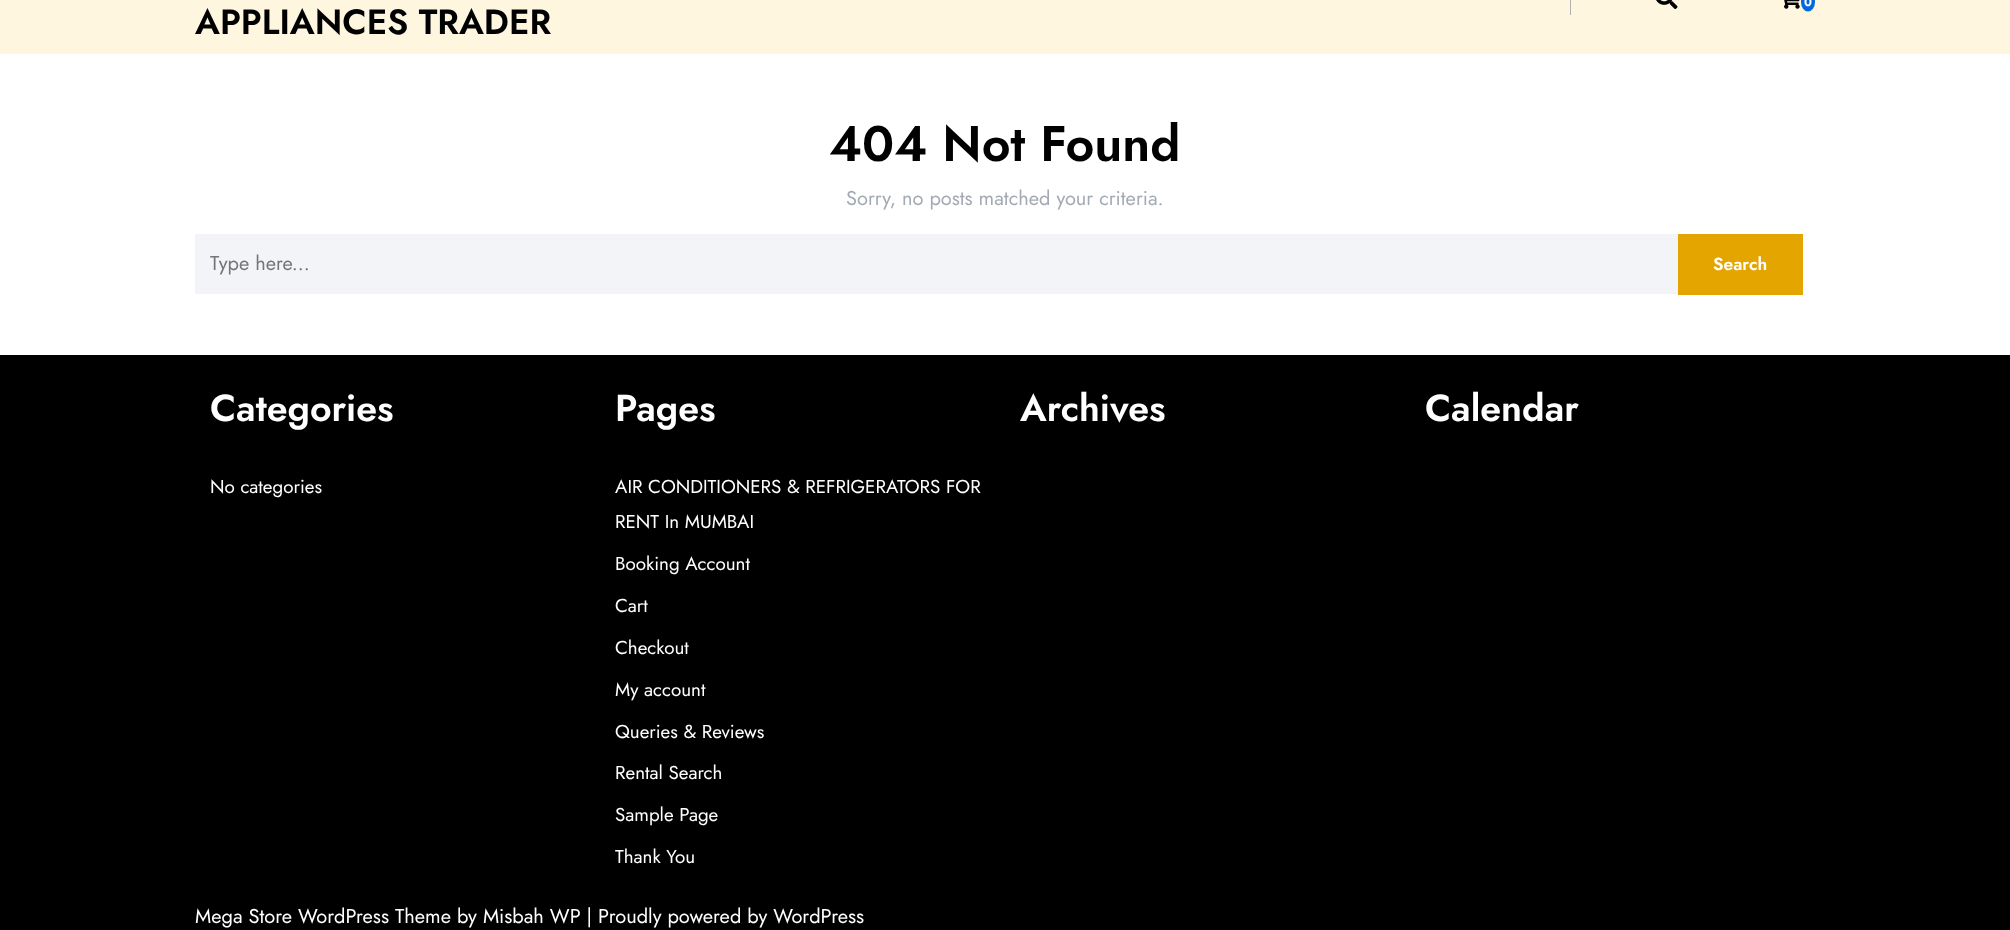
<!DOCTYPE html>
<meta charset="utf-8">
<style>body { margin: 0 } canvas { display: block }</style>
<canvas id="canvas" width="2010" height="930"></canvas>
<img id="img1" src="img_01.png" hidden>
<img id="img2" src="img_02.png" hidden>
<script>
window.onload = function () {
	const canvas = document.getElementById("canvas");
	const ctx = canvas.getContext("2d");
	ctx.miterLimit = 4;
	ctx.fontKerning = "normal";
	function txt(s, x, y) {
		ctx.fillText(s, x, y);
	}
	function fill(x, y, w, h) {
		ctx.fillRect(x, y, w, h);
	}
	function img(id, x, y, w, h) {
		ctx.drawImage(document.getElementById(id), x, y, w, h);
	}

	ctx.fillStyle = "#FFFFFF";
	fill(0, 0, 2010, 930);
	ctx.fillStyle = "#FFF6DF";
	fill(0, 0, 2010, 54);
	ctx.fillStyle = "#B1B1B1";
	fill(1570, 0, 1, 15);
	img("img1", 1656, 0, 22, 9);
	img("img2", 1784, 0, 16, 9);
	ctx.fillStyle = "#0069DF";
	ctx.beginPath();
	ctx.ellipse(1808, 2, 7, 9.5, 0, 0, Math.PI * 2);
	ctx.fill();
	ctx.fillStyle = "#F3F4F7";
	fill(195, 234, 1483, 60);
	ctx.fillStyle = "#E5A500";
	fill(1678, 234, 125, 61);
	ctx.fillStyle = "#000000";
	fill(0, 355, 2010, 575);
	ctx.font = "bold 12px Jost";
	ctx.fillStyle = "#FFFFFF";
	txt("0", 1804, 6);
	ctx.font = "600 35px Jost";
	ctx.fillStyle = "#000000";
	txt("APPLIANCES TRADER", 195, 34);
	ctx.font = "600 50px Jost";
	txt("404 Not Found", 829, 161);
	ctx.font = "20px Jost";
	ctx.fillStyle = "#A3AAB4";
	txt("Sorry, no posts matched your criteria.", 846, 205);
	ctx.fillStyle = "#757575";
	txt("Type here...", 210, 270);
	ctx.font = "600 17.5px Jost";
	ctx.fillStyle = "#FFFFFF";
	txt("Search", 1713, 270);
	ctx.font = "600 37.5px Jost";
	txt("Categories", 210, 421);
	ctx.font = "18.75px Jost";
	txt("No categories", 210, 493);
	ctx.font = "600 37.5px Jost";
	txt("Pages", 615, 421);
	ctx.font = "18.75px Jost";
	txt("AIR CONDITIONERS & REFRIGERATORS FOR", 615, 493);
	txt("RENT In MUMBAI", 615, 528);
	txt("Booking Account", 615, 570);
	txt("Cart", 615, 612);
	txt("Checkout", 615, 654);
	txt("My account", 615, 696);
	txt("Queries & Reviews", 615, 738);
	txt("Rental Search", 615, 779);
	txt("Sample Page", 615, 821);
	txt("Thank You", 615, 863);
	ctx.font = "600 37.5px Jost";
	txt("Archives", 1020, 421);
	txt("Calendar", 1425, 421);
	ctx.font = "20px Jost";
	txt("Mega Store WordPress Theme by Misbah WP | Proudly powered by WordPress", 195, 923);
};
</script>
